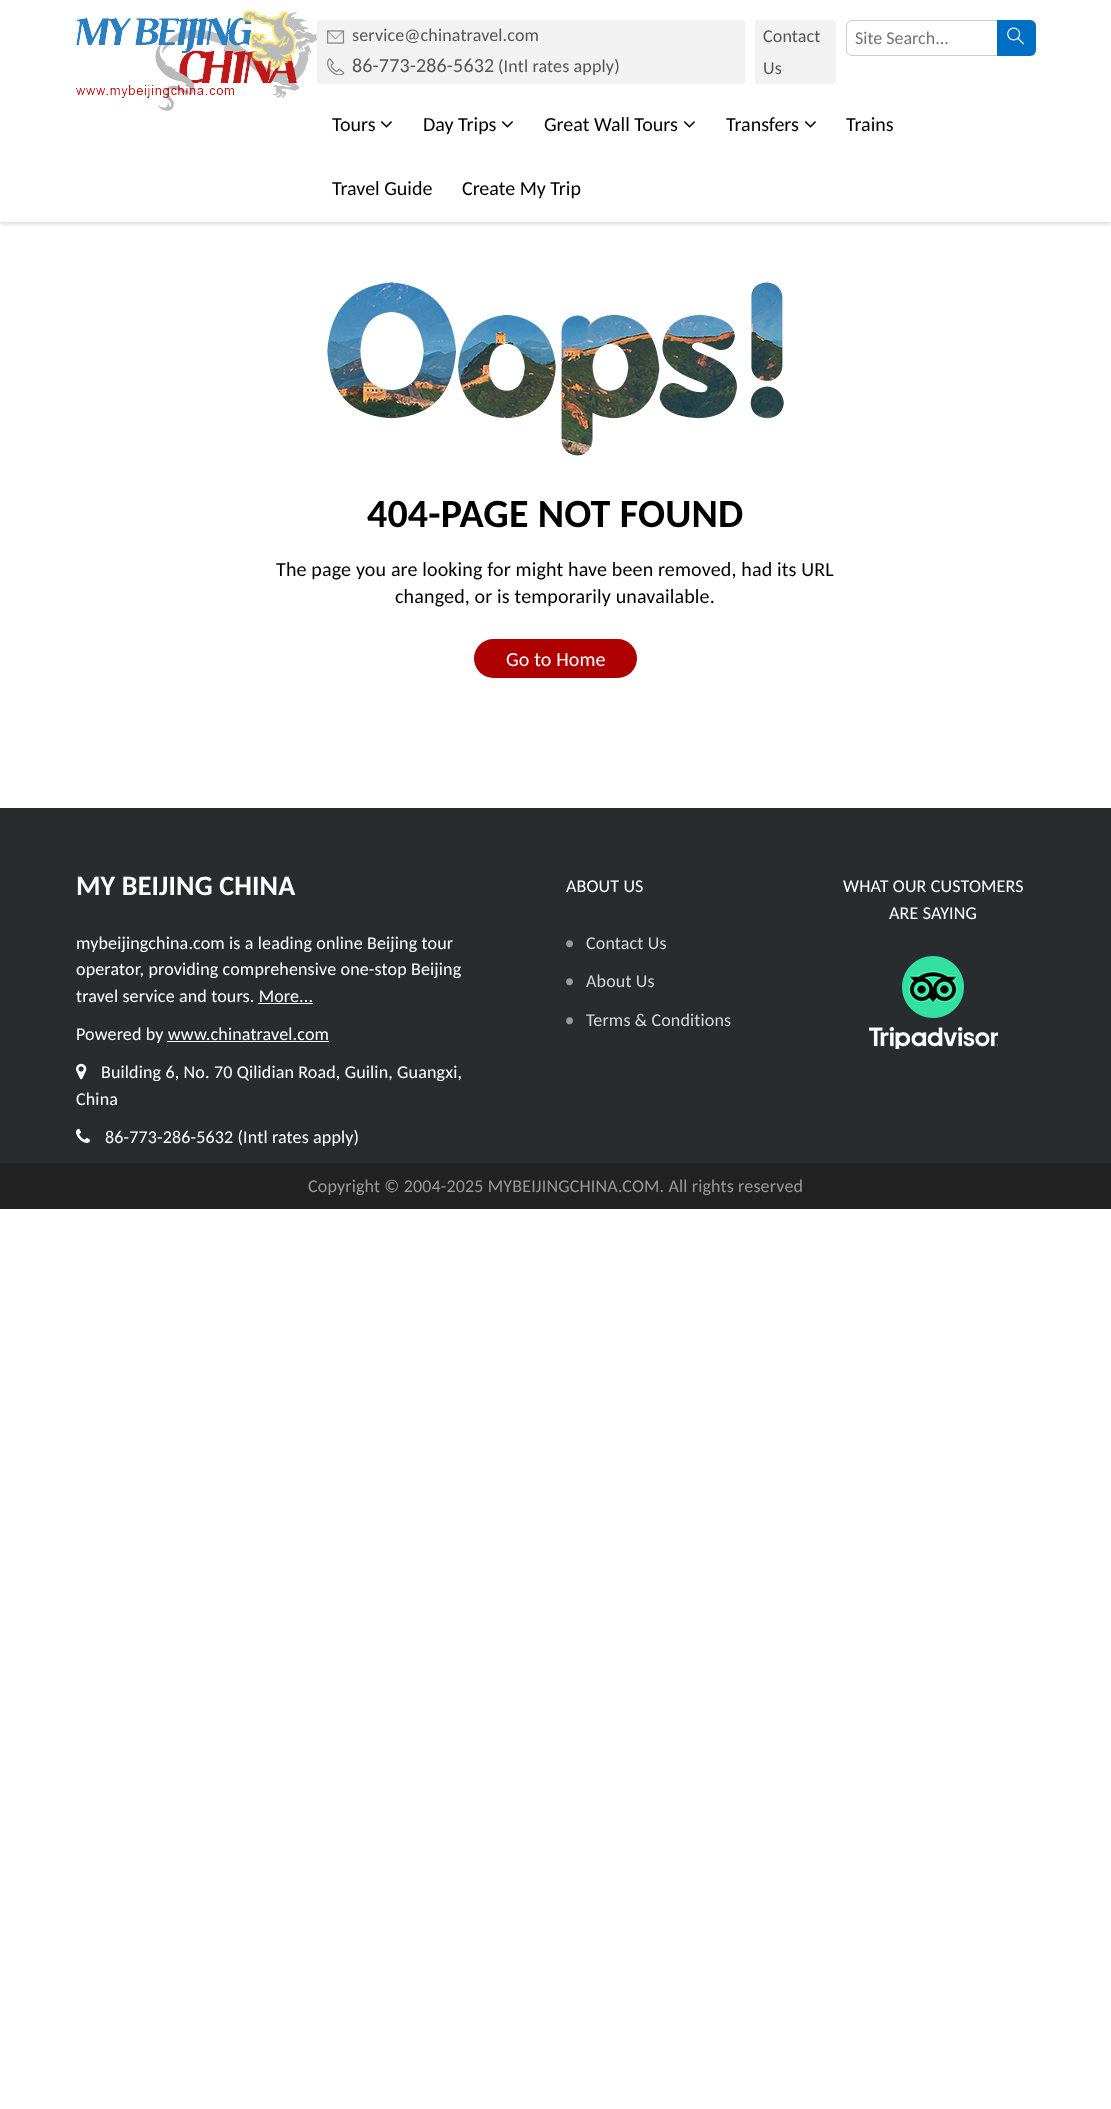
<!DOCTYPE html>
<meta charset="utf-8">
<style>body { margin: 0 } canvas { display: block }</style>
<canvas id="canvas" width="1111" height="2109"></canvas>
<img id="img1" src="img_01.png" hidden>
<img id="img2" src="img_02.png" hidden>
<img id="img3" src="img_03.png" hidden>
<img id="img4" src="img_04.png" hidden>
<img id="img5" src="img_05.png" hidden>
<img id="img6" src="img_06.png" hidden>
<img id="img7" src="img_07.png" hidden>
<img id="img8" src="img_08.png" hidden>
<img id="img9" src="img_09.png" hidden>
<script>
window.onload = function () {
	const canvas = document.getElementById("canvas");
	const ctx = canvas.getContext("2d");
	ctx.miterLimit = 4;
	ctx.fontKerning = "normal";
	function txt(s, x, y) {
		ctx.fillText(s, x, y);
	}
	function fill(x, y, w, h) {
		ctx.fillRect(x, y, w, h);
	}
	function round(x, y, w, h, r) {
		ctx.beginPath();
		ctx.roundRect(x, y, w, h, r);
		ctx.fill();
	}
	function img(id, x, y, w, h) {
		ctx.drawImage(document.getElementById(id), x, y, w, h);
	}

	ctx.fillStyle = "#FFFFFF";
	fill(0, 0, 1111, 2109);
	ctx.save();
	ctx.beginPath();
	ctx.rect(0, 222, 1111, 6);
	ctx.clip();
	ctx.fillStyle = "#CCCCCC";
	ctx.filter = "blur(2.5px)";
	ctx.beginPath();
	ctx.rect(0, 1, 1111, 222);
	ctx.fill();
	ctx.filter = "none";
	ctx.restore();
	img("img1", 76, 10, 241, 101);
	ctx.fillStyle = "#F2F2F2";
	round(317, 20, 428, 64, 4);
	img("img2", 327, 30, 18, 14);
	img("img3", 327, 58, 18, 17);
	round(755, 20, 81, 64, 4);
	ctx.beginPath();
	ctx.roundRect(846.5, 20.5, 189, 35, 5.5);
	ctx.strokeStyle = "#CCCCCC";
	ctx.stroke();
	ctx.fillStyle = "#006EC2";
	ctx.beginPath();
	ctx.roundRect(997, 20, 39, 36, [0, 6, 6, 0]);
	ctx.fill();
	img("img4", 1007, 27, 18, 18);
	img("img5", 380, 121, 12, 7);
	img("img5", 501, 121, 12, 7);
	img("img5", 683, 121, 12, 7);
	img("img5", 804, 121, 12, 7);
	img("img6", 327, 282, 457, 174);
	ctx.fillStyle = "#AE0000";
	round(474, 639, 163, 39, 19.5);
	ctx.fillStyle = "#282C2F";
	fill(0, 808, 1111, 355);
	ctx.fillStyle = "#FFFFFF";
	fill(258, 1003, 55, 1);
	fill(167, 1041, 162, 1);
	img("img7", 76, 1063, 11, 17);
	img("img8", 76, 1128, 15, 15);
	img("img9", 869, 956, 129, 93);
	ctx.fillStyle = "#222222";
	fill(0, 1163, 1111, 46);
	ctx.letterSpacing = "0.15px";
	ctx.font = "18px Carlito";
	ctx.fillStyle = "#555555";
	txt("service@chinatravel.com", 352, 41);
	ctx.font = "20px Carlito";
	txt("86-773-286-5632", 352, 72);
	ctx.font = "18px Carlito";
	txt("(Intl rates apply)", 498, 72);
	txt("Contact", 763, 42);
	txt("Us", 763, 74);
	ctx.letterSpacing = "0px";
	ctx.fillStyle = "#757575";
	txt("Site Search...", 855, 44);
	ctx.font = "20px Carlito";
	ctx.fillStyle = "#000000";
	txt("Tours", 332, 131);
	txt("Day Trips", 423, 131);
	txt("Great Wall Tours", 544, 131);
	txt("Transfers", 726, 131);
	txt("Trains", 846, 131);
	txt("Travel Guide", 332, 195);
	txt("Create My Trip", 462, 195);
	ctx.letterSpacing = "0.15px";
	ctx.font = "bold 40px Carlito";
	txt("404-PAGE NOT FOUND", 367, 527);
	ctx.font = "20px Carlito";
	txt("The page you are looking for might have been removed, had its URL", 276, 576);
	txt("changed, or is temporarily unavailable.", 395, 603);
	ctx.fillStyle = "#FFFFFF";
	txt("Go to Home", 506, 666);
	ctx.font = "bold 28px Carlito";
	txt("MY BEIJING CHINA", 76, 895);
	ctx.font = "18px Carlito";
	txt("mybeijingchina.com is a leading online Beijing tour", 76, 949);
	txt("operator, providing comprehensive one-stop Beijing", 76, 975);
	txt("travel service and tours. More...", 76, 1002);
	txt("Powered by www.chinatravel.com", 76, 1040);
	txt("Building 6, No. 70 Qilidian Road, Guilin, Guangxi,", 101, 1078);
	txt("China", 76, 1105);
	txt("86-773-286-5632 (Intl rates apply)", 105, 1143);
	txt("ABOUT US", 566, 892);
	ctx.font = "15px Carlito";
	ctx.fillStyle = "#999999";
	txt("●", 565, 948);
	ctx.font = "18px Carlito";
	ctx.fillStyle = "#D7D7D7";
	txt("Contact Us", 586, 949);
	ctx.font = "15px Carlito";
	ctx.fillStyle = "#999999";
	txt("●", 565, 986);
	ctx.font = "18px Carlito";
	ctx.fillStyle = "#D7D7D7";
	txt("About Us", 586, 987);
	ctx.font = "15px Carlito";
	ctx.fillStyle = "#999999";
	txt("●", 565, 1025);
	ctx.font = "18px Carlito";
	ctx.fillStyle = "#D7D7D7";
	txt("Terms & Conditions", 586, 1026);
	ctx.fillStyle = "#FFFFFF";
	txt("WHAT OUR CUSTOMERS", 843, 892);
	txt("ARE SAYING", 889, 919);
	ctx.fillStyle = "#999999";
	txt("Copyright © 2004-2025 MYBEIJINGCHINA.COM. All rights reserved", 308, 1192);
};
</script>
